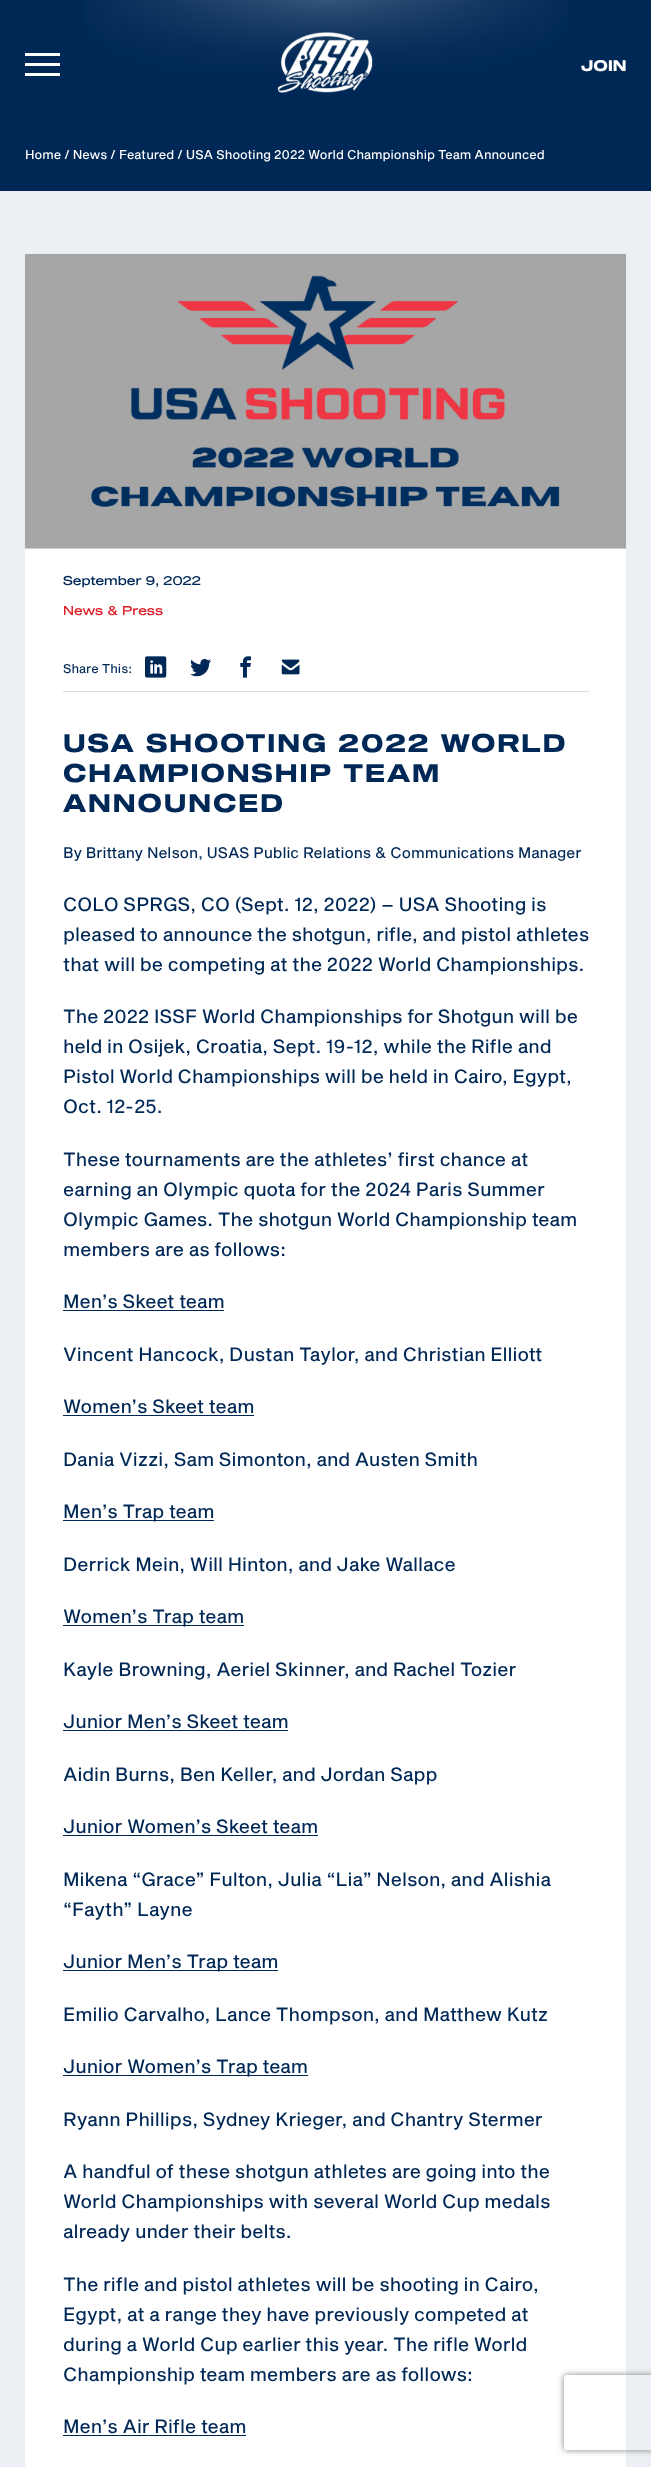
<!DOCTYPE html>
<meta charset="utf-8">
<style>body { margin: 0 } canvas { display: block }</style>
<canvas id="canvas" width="651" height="2467"></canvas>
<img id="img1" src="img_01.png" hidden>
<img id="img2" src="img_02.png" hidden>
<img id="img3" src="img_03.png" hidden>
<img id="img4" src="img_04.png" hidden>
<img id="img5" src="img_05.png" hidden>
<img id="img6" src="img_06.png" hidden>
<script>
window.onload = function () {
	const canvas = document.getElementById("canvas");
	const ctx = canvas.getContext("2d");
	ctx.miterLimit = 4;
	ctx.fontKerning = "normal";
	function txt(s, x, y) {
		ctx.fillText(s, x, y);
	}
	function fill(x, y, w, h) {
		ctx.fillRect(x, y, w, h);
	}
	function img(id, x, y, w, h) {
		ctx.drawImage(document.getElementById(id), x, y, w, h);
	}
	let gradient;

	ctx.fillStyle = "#002856";
	fill(0, 0, 651, 2467);
	gradient = ctx.createRadialGradient(326, 0, 0, 326, 0, 461);
	gradient.addColorStop(0.01, "#335378");
	gradient.addColorStop(0.55, "#002856");
	ctx.fillStyle = gradient;
	ctx.beginPath();
	ctx.rect(84, 0, 484, 77);
	ctx.save();
	ctx.clip();
	ctx.scale(1, 177 / 461);
	ctx.fillRect(0, 0, 651, 6426);
	ctx.restore();
	gradient = ctx.createLinearGradient(326, 125, 326, 0);
	gradient.addColorStop(0.38, "#002856");
	gradient.addColorStop(1, "rgba(0, 40, 86, 0)");
	ctx.fillStyle = gradient;
	fill(118, 4, 416, 73);
	ctx.fillStyle = "#FFFFFF";
	fill(25, 63, 35, 3);
	fill(25, 53, 35, 3);
	fill(25, 73, 35, 3);
	img("img1", 277, 32, 96, 61);
	ctx.fillStyle = "#ECF0F4";
	fill(0, 191, 651, 2276);
	ctx.fillStyle = "#FFFFFF";
	fill(25, 548, 601, 1919);
	img("img2", 25, 253, 602, 296);
	ctx.fillStyle = "#DADCDE";
	fill(63, 691, 526, 1);
	img("img3", 145, 656, 22, 22);
	img("img4", 190, 659, 22, 18);
	img("img5", 240, 656, 11, 22);
	img("img6", 281, 659, 19, 16);
	ctx.fillStyle = "#002856";
	fill(63, 1310, 161, 1);
	fill(63, 1415, 191, 1);
	fill(63, 1520, 151, 1);
	fill(63, 1625, 181, 1);
	fill(63, 1730, 225, 1);
	fill(63, 1835, 255, 1);
	fill(63, 1970, 215, 1);
	fill(63, 2075, 245, 1);
	fill(63, 2435, 183, 1);
	ctx.save();
	ctx.beginPath();
	ctx.moveTo(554, 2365);
	ctx.lineTo(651, 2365);
	ctx.lineTo(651, 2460);
	ctx.lineTo(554, 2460);
	ctx.closePath();
	ctx.moveTo(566.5, 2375);
	ctx.lineTo(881.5, 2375);
	ctx.bezierCurveTo(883, 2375, 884, 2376, 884, 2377.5);
	ctx.lineTo(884, 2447.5);
	ctx.bezierCurveTo(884, 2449, 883, 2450, 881.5, 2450);
	ctx.lineTo(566.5, 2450);
	ctx.bezierCurveTo(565, 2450, 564, 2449, 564, 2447.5);
	ctx.lineTo(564, 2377.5);
	ctx.bezierCurveTo(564, 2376, 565, 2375, 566.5, 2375);
	ctx.closePath();
	ctx.clip("evenodd");
	ctx.fillStyle = "#808080";
	ctx.filter = "blur(3px)";
	ctx.beginPath();
	ctx.roundRect(564, 2375, 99, 75, 2.5);
	ctx.fill();
	ctx.filter = "none";
	ctx.restore();
	ctx.font = "bold 15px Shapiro";
	ctx.fillStyle = "#FFFFFF";
	txt("JOIN", 581, 71);
	ctx.font = "12.5px Shapiro";
	txt("Home / News / Featured / USA Shooting 2022 World Championship Team Announced", 25, 159);
	ctx.font = "100 12.5px Shapiro";
	ctx.fillStyle = "#002856";
	txt("September 9, 2022", 63, 585);
	ctx.fillStyle = "#DE202B";
	txt("News & Press", 63, 615);
	ctx.font = "12.5px Shapiro";
	ctx.fillStyle = "#002856";
	txt("Share This:", 63, 673);
	ctx.letterSpacing = "1.9px";
	ctx.font = "bold 25px Shapiro";
	txt("USA SHOOTING 2022 WORLD", 63, 752);
	txt("CHAMPIONSHIP TEAM", 63, 782);
	txt("ANNOUNCED", 63, 812);
	ctx.letterSpacing = "0px";
	ctx.font = "15px Shapiro";
	txt("By Brittany Nelson, USAS Public Relations & Communications Manager", 63, 858);
	ctx.font = "18.75px Shapiro";
	txt("COLO SPRGS, CO (Sept. 12, 2022) – USA Shooting is", 63, 911);
	txt("pleased to announce the shotgun, rifle, and pistol athletes", 63, 941);
	txt("that will be competing at the 2022 World Championships.", 63, 971);
	txt("The 2022 ISSF World Championships for Shotgun will be", 63, 1023);
	txt("held in Osijek, Croatia, Sept. 19-12, while the Rifle and", 63, 1053);
	txt("Pistol World Championships will be held in Cairo, Egypt,", 63, 1083);
	txt("Oct. 12-25.", 63, 1113);
	txt("These tournaments are the athletes’ first chance at", 63, 1166);
	txt("earning an Olympic quota for the 2024 Paris Summer", 63, 1196);
	txt("Olympic Games. The shotgun World Championship team", 63, 1226);
	txt("members are as follows:", 63, 1256);
	txt("Men’s Skeet team", 63, 1308);
	txt("Vincent Hancock, Dustan Taylor, and Christian Elliott", 63, 1361);
	txt("Women’s Skeet team", 63, 1413);
	txt("Dania Vizzi, Sam Simonton, and Austen Smith", 63, 1466);
	txt("Men’s Trap team", 63, 1518);
	txt("Derrick Mein, Will Hinton, and Jake Wallace", 63, 1571);
	txt("Women’s Trap team", 63, 1623);
	txt("Kayle Browning, Aeriel Skinner, and Rachel Tozier", 63, 1676);
	txt("Junior Men’s Skeet team", 63, 1728);
	txt("Aidin Burns, Ben Keller, and Jordan Sapp", 63, 1781);
	txt("Junior Women’s Skeet team", 63, 1833);
	txt("Mikena “Grace” Fulton, Julia “Lia” Nelson, and Alishia", 63, 1886);
	txt("“Fayth” Layne", 63, 1916);
	txt("Junior Men’s Trap team", 63, 1968);
	txt("Emilio Carvalho, Lance Thompson, and Matthew Kutz", 63, 2021);
	txt("Junior Women’s Trap team", 63, 2073);
	txt("Ryann Phillips, Sydney Krieger, and Chantry Stermer", 63, 2126);
	txt("A handful of these shotgun athletes are going into the", 63, 2178);
	txt("World Championships with several World Cup medals", 63, 2208);
	txt("already under their belts.", 63, 2238);
	txt("The rifle and pistol athletes will be shooting in Cairo,", 63, 2291);
	txt("Egypt, at a range they have previously competed at", 63, 2321);
	txt("during a World Cup earlier this year. The rifle World", 63, 2351);
	txt("Championship team members are as follows:", 63, 2381);
	txt("Men’s Air Rifle team", 63, 2433);
};
</script>
